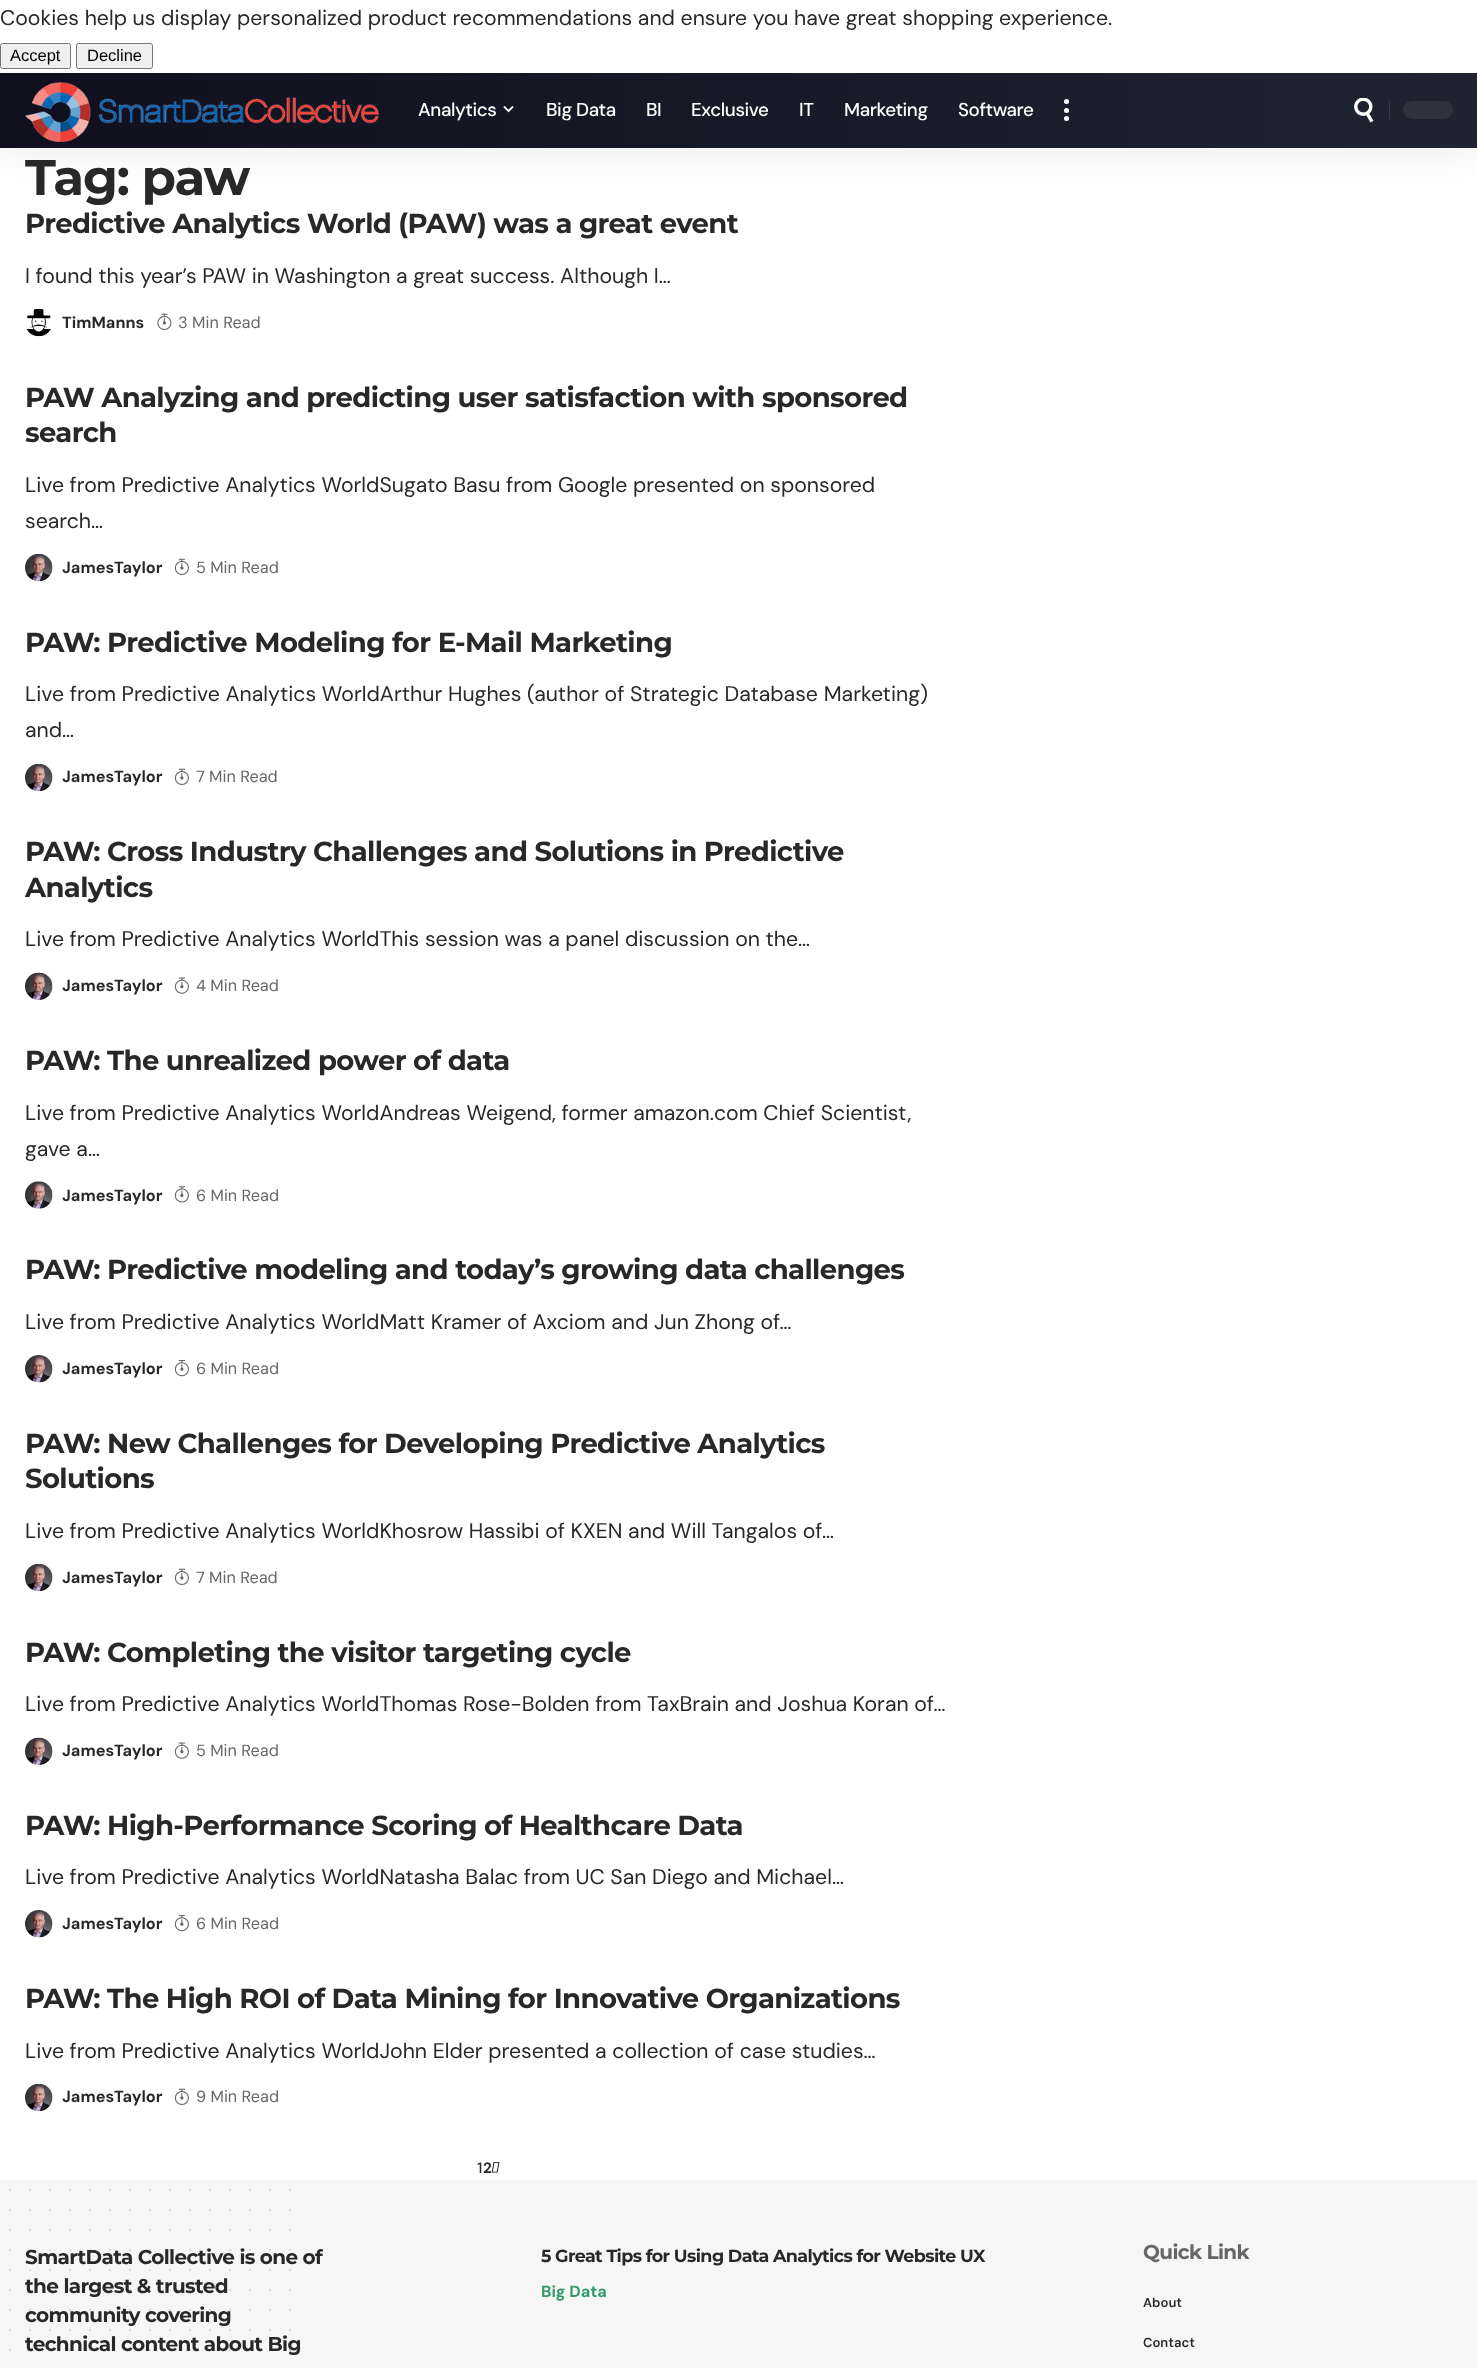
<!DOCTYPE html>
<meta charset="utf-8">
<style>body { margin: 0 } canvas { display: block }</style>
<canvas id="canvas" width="1477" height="2368"></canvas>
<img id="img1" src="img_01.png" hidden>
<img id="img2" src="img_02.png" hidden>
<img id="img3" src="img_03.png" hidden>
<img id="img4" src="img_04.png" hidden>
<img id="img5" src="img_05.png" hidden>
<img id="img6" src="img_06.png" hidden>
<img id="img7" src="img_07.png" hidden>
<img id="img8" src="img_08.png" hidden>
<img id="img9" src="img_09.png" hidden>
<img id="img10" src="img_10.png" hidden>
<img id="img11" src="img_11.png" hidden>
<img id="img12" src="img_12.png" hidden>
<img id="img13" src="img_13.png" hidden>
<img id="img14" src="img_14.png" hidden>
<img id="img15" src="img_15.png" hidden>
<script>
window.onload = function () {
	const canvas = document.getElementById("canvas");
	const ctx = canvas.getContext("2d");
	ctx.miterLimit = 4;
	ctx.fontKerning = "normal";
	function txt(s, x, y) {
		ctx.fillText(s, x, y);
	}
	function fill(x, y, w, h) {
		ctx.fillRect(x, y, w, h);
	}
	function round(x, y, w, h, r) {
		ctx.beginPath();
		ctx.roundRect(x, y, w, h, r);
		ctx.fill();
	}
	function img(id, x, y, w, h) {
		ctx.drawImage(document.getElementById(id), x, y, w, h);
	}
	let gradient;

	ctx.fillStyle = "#FFFFFF";
	fill(0, 0, 1477, 2368);
	ctx.fillStyle = "#EFEFEF";
	ctx.beginPath();
	ctx.roundRect(0.5, 43.5, 70, 25, 2);
	ctx.fill();
	ctx.strokeStyle = "#767676";
	ctx.stroke();
	ctx.beginPath();
	ctx.roundRect(76.5, 43.5, 76, 25, 2);
	ctx.fill();
	ctx.stroke();
	ctx.save();
	ctx.beginPath();
	ctx.rect(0, 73, 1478, 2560);
	ctx.clip();
	ctx.fillStyle = "rgba(0, 0, 0, 0.07)";
	ctx.filter = "blur(19px)";
	ctx.beginPath();
	ctx.rect(0, 78, 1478, 75);
	ctx.fill();
	ctx.filter = "none";
	ctx.restore();
	gradient = ctx.createLinearGradient(0, 110, 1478, 110);
	gradient.addColorStop(0, "#100F1E");
	gradient.addColorStop(1, "#1E2432");
	ctx.fillStyle = gradient;
	fill(0, 73, 1477, 75);
	img("img1", 25, 82, 354, 60);
	img("img2", 503, 105, 11, 8);
	ctx.fillStyle = "#FFFFFF";
	ctx.beginPath();
	ctx.arc(1066.5, 101.5, 2.5, 0, Math.PI * 2);
	ctx.fill();
	ctx.beginPath();
	ctx.arc(1066.5, 110.5, 2.5, 0, Math.PI * 2);
	ctx.fill();
	ctx.beginPath();
	ctx.arc(1066.5, 118.5, 2.5, 0, Math.PI * 2);
	ctx.fill();
	img("img3", 1354, 98, 20, 25);
	ctx.fillStyle = "#343946";
	fill(1389, 101, 1, 18);
	ctx.fillStyle = "#2E323E";
	round(1403, 101, 50, 18, 9);
	img("img4", 26, 308, 25, 29);
	img("img5", 157, 313, 15, 17);
	img("img6", 25, 553, 28, 29);
	img("img7", 174, 558, 15, 17);
	img("img6", 25, 763, 28, 29);
	img("img7", 174, 768, 15, 17);
	img("img8", 25, 972, 28, 28);
	img("img9", 174, 977, 15, 17);
	img("img10", 25, 1181, 28, 28);
	img("img11", 174, 1186, 15, 17);
	img("img12", 25, 1355, 28, 28);
	img("img13", 174, 1360, 15, 17);
	img("img14", 25, 1563, 28, 29);
	img("img7", 174, 1568, 15, 17);
	img("img8", 25, 1737, 28, 28);
	img("img9", 174, 1742, 15, 17);
	img("img12", 25, 1910, 28, 28);
	img("img13", 174, 1915, 15, 17);
	img("img6", 25, 2083, 28, 29);
	img("img7", 174, 2088, 15, 17);
	img("img15", 491, 2162, 9, 11);
	ctx.fillStyle = "#F6F6F6";
	fill(0, 2180, 1477, 188);
	ctx.beginPath();
	ctx.moveTo(10, 2190);
	ctx.lineTo(290.2, 2190);
	ctx.strokeStyle = "#CDCDCD";
	ctx.lineWidth = 1.9;
	ctx.lineCap = "round";
	ctx.setLineDash([0, 20]);
	ctx.stroke();
	ctx.beginPath();
	ctx.moveTo(10, 2210);
	ctx.lineTo(290.2, 2210);
	ctx.stroke();
	ctx.beginPath();
	ctx.moveTo(10, 2230);
	ctx.lineTo(290.2, 2230);
	ctx.stroke();
	ctx.beginPath();
	ctx.moveTo(10, 2250);
	ctx.lineTo(290.2, 2250);
	ctx.stroke();
	ctx.beginPath();
	ctx.moveTo(10, 2270);
	ctx.lineTo(290.2, 2270);
	ctx.stroke();
	ctx.beginPath();
	ctx.moveTo(10, 2290);
	ctx.lineTo(290.2, 2290);
	ctx.stroke();
	ctx.beginPath();
	ctx.moveTo(10, 2310);
	ctx.lineTo(290.2, 2310);
	ctx.stroke();
	ctx.beginPath();
	ctx.moveTo(10, 2330);
	ctx.lineTo(290.2, 2330);
	ctx.stroke();
	ctx.beginPath();
	ctx.moveTo(10, 2350);
	ctx.lineTo(290.2, 2350);
	ctx.stroke();
	ctx.font = "21.25px DM Sans";
	ctx.fillStyle = "#282828";
	txt("Cookies help us display personalized product recommendations and ensure you have great shopping experience.", 0, 25);
	ctx.font = "16.5px Liberation Sans";
	ctx.fillStyle = "#000000";
	txt("Accept", 10, 61);
	txt("Decline", 87, 61);
	ctx.letterSpacing = "-0.4px";
	ctx.font = "500 18.75px 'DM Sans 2'";
	ctx.fillStyle = "#FFFFFF";
	txt("Analytics", 418, 116);
	txt("Big Data", 546, 116);
	txt("BI", 646, 116);
	txt("Exclusive", 691, 116);
	txt("IT", 799, 116);
	txt("Marketing", 844, 116);
	txt("Software", 958, 116);
	ctx.letterSpacing = "-1.25px";
	ctx.font = "bold 50px Montserrat";
	ctx.fillStyle = "#282828";
	txt("Tag: paw", 25, 195);
	ctx.letterSpacing = "-0.62px";
	ctx.font = "bold 27.5px Montserrat";
	txt("Predictive Analytics World (PAW) was a great event", 25, 233);
	ctx.letterSpacing = "0px";
	ctx.font = "21.25px DM Sans";
	txt("I found this year’s PAW in Washington a great success. Although I…", 25, 283);
	ctx.font = "bold 16.25px DM Sans";
	txt("TimManns", 62, 328);
	ctx.font = "16.25px 'DM Sans 2'";
	ctx.fillStyle = "#666666";
	txt("3 Min Read", 178, 328);
	ctx.letterSpacing = "-0.62px";
	ctx.font = "bold 27.5px Montserrat";
	ctx.fillStyle = "#282828";
	txt("PAW Analyzing and predicting user satisfaction with sponsored", 25, 407);
	txt("search", 25, 442);
	ctx.letterSpacing = "0px";
	ctx.font = "21.25px DM Sans";
	txt("Live from Predictive Analytics WorldSugato Basu from Google presented on sponsored", 25, 492);
	txt("search…", 25, 528);
	ctx.font = "bold 16.25px DM Sans";
	txt("JamesTaylor", 62, 573);
	ctx.font = "16.25px 'DM Sans 2'";
	ctx.fillStyle = "#666666";
	txt("5 Min Read", 196, 573);
	ctx.letterSpacing = "-0.62px";
	ctx.font = "bold 27.5px Montserrat";
	ctx.fillStyle = "#282828";
	txt("PAW: Predictive Modeling for E-Mail Marketing", 25, 652);
	ctx.letterSpacing = "0px";
	ctx.wordSpacing = "0.1px";
	ctx.font = "21.25px DM Sans";
	txt("Live from Predictive Analytics WorldArthur Hughes (author of Strategic Database Marketing)", 25, 701);
	ctx.wordSpacing = "0px";
	txt("and…", 25, 737);
	ctx.font = "bold 16.25px DM Sans";
	txt("JamesTaylor", 62, 782);
	ctx.font = "16.25px 'DM Sans 2'";
	ctx.fillStyle = "#666666";
	txt("7 Min Read", 196, 782);
	ctx.letterSpacing = "-0.62px";
	ctx.font = "bold 27.5px Montserrat";
	ctx.fillStyle = "#282828";
	txt("PAW: Cross Industry Challenges and Solutions in Predictive", 25, 861);
	txt("Analytics", 25, 897);
	ctx.letterSpacing = "0px";
	ctx.font = "21.25px DM Sans";
	txt("Live from Predictive Analytics WorldThis session was a panel discussion on the…", 25, 946);
	ctx.font = "bold 16.25px DM Sans";
	txt("JamesTaylor", 62, 991);
	ctx.font = "16.25px 'DM Sans 2'";
	ctx.fillStyle = "#666666";
	txt("4 Min Read", 196, 991);
	ctx.letterSpacing = "-0.62px";
	ctx.font = "bold 27.5px Montserrat";
	ctx.fillStyle = "#282828";
	txt("PAW: The unrealized power of data", 25, 1070);
	ctx.letterSpacing = "0px";
	ctx.font = "21.25px DM Sans";
	txt("Live from Predictive Analytics WorldAndreas Weigend, former amazon.com Chief Scientist,", 25, 1120);
	txt("gave a…", 25, 1156);
	ctx.font = "bold 16.25px DM Sans";
	txt("JamesTaylor", 62, 1201);
	ctx.font = "16.25px 'DM Sans 2'";
	ctx.fillStyle = "#666666";
	txt("6 Min Read", 196, 1201);
	ctx.letterSpacing = "-0.62px";
	ctx.font = "bold 27.5px Montserrat";
	ctx.fillStyle = "#282828";
	txt("PAW: Predictive modeling and today’s growing data challenges", 25, 1279);
	ctx.letterSpacing = "0px";
	ctx.font = "21.25px DM Sans";
	txt("Live from Predictive Analytics WorldMatt Kramer of Axciom and Jun Zhong of…", 25, 1329);
	ctx.font = "bold 16.25px DM Sans";
	txt("JamesTaylor", 62, 1374);
	ctx.font = "16.25px 'DM Sans 2'";
	ctx.fillStyle = "#666666";
	txt("6 Min Read", 196, 1374);
	ctx.letterSpacing = "-0.62px";
	ctx.font = "bold 27.5px Montserrat";
	ctx.fillStyle = "#282828";
	txt("PAW: New Challenges for Developing Predictive Analytics", 25, 1453);
	txt("Solutions", 25, 1488);
	ctx.letterSpacing = "0px";
	ctx.font = "21.25px DM Sans";
	txt("Live from Predictive Analytics WorldKhosrow Hassibi of KXEN and Will Tangalos of…", 25, 1538);
	ctx.font = "bold 16.25px DM Sans";
	txt("JamesTaylor", 62, 1583);
	ctx.font = "16.25px 'DM Sans 2'";
	ctx.fillStyle = "#666666";
	txt("7 Min Read", 196, 1583);
	ctx.letterSpacing = "-0.62px";
	ctx.font = "bold 27.5px Montserrat";
	ctx.fillStyle = "#282828";
	txt("PAW: Completing the visitor targeting cycle", 25, 1662);
	ctx.letterSpacing = "0px";
	ctx.font = "21.25px DM Sans";
	txt("Live from Predictive Analytics WorldThomas Rose-Bolden from TaxBrain and Joshua Koran of…", 25, 1711);
	ctx.font = "bold 16.25px DM Sans";
	txt("JamesTaylor", 62, 1756);
	ctx.font = "16.25px 'DM Sans 2'";
	ctx.fillStyle = "#666666";
	txt("5 Min Read", 196, 1756);
	ctx.letterSpacing = "-0.62px";
	ctx.font = "bold 27.5px Montserrat";
	ctx.fillStyle = "#282828";
	txt("PAW: High-Performance Scoring of Healthcare Data", 25, 1835);
	ctx.letterSpacing = "0px";
	ctx.font = "21.25px DM Sans";
	txt("Live from Predictive Analytics WorldNatasha Balac from UC San Diego and Michael…", 25, 1884);
	ctx.font = "bold 16.25px DM Sans";
	txt("JamesTaylor", 62, 1929);
	ctx.font = "16.25px 'DM Sans 2'";
	ctx.fillStyle = "#666666";
	txt("6 Min Read", 196, 1929);
	ctx.letterSpacing = "-0.62px";
	ctx.font = "bold 27.5px Montserrat";
	ctx.fillStyle = "#282828";
	txt("PAW: The High ROI of Data Mining for Innovative Organizations", 25, 2008);
	ctx.letterSpacing = "0px";
	ctx.font = "21.25px DM Sans";
	txt("Live from Predictive Analytics WorldJohn Elder presented a collection of case studies…", 25, 2058);
	ctx.font = "bold 16.25px DM Sans";
	txt("JamesTaylor", 62, 2102);
	ctx.font = "16.25px 'DM Sans 2'";
	ctx.fillStyle = "#666666";
	txt("9 Min Read", 196, 2102);
	ctx.font = "500 15px DM Sans";
	ctx.fillStyle = "#282828";
	txt("1", 477, 2173);
	ctx.font = "bold 15px 'DM Sans 2'";
	txt("2", 483, 2173);
	ctx.letterSpacing = "-0.62px";
	ctx.font = "bold 20px Montserrat";
	txt("SmartData Collective is one of", 25, 2264);
	txt("the largest & trusted", 25, 2293);
	txt("community covering", 25, 2322);
	txt("technical content about Big", 25, 2351);
	ctx.font = "bold 17.5px Montserrat";
	txt("5 Great Tips for Using Data Analytics for Website UX", 541, 2262);
	ctx.letterSpacing = "0px";
	ctx.font = "bold 16.25px DM Sans";
	ctx.fillStyle = "#309B65";
	txt("Big Data", 541, 2297);
	ctx.letterSpacing = "-0.62px";
	ctx.font = "bold 20px Montserrat";
	ctx.fillStyle = "#666666";
	txt("Quick Link", 1143, 2259);
	ctx.letterSpacing = "0px";
	ctx.font = "600 13px DM Sans";
	ctx.fillStyle = "#282828";
	txt("About", 1143, 2307);
	txt("Contact", 1143, 2347);
};
</script>
